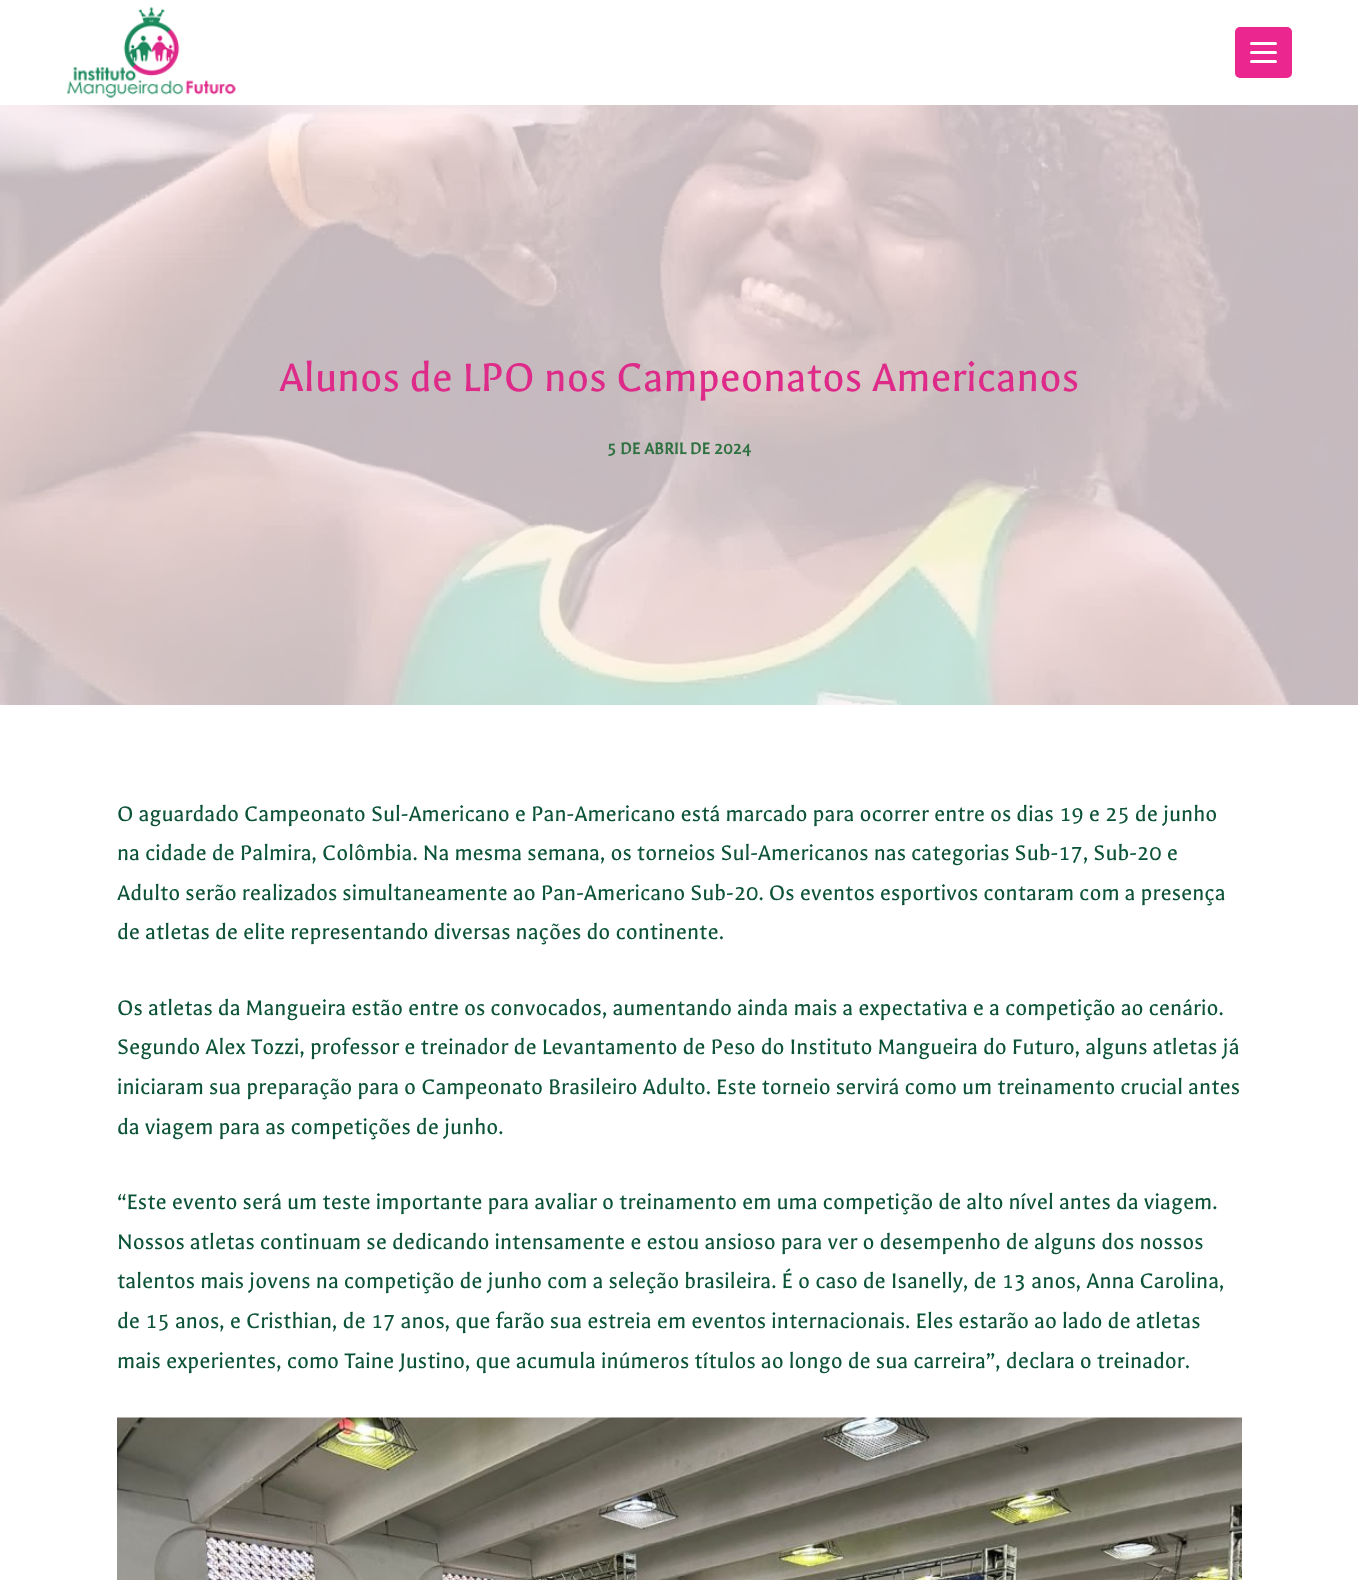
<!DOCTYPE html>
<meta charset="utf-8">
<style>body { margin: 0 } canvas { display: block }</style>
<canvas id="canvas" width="1358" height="1580"></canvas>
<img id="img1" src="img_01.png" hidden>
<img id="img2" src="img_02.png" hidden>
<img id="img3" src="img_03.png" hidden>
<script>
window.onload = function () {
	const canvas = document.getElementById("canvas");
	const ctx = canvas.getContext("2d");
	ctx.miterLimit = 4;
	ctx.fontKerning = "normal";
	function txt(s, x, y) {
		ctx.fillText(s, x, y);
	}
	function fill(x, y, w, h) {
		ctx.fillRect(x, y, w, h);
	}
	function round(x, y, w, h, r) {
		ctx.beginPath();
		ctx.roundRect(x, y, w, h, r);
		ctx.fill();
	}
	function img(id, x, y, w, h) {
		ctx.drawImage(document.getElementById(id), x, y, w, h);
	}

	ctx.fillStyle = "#FFFFFF";
	fill(0, 0, 1358, 1580);
	img("img1", 67, 7, 169, 91);
	ctx.fillStyle = "#EC268F";
	round(1235, 27, 57, 51, 5);
	ctx.fillStyle = "#FFFFFF";
	round(1250, 42, 27, 3, 1.5);
	round(1250, 51, 27, 3, 1.5);
	round(1250, 60, 27, 3, 1.5);
	img("img2", 0, 105, 1358, 600);
	img("img3", 117, 1417, 1125, 163);
	ctx.font = "45px Galdeano";
	ctx.fillStyle = "#DE2A89";
	txt("Alunos de LPO nos Campeonatos Americanos", 279, 391);
	ctx.font = "bold 18px Galdeano";
	ctx.fillStyle = "#2F7141";
	txt("5 DE ABRIL DE 2024", 607, 454);
	ctx.font = "24px Galdeano";
	ctx.fillStyle = "#0C5337";
	txt("O aguardado Campeonato Sul-Americano e Pan-Americano está marcado para ocorrer entre os dias 19 e 25 de junho", 117, 821);
	txt("na cidade de Palmira, Colômbia. Na mesma semana, os torneios Sul-Americanos nas categorias Sub-17, Sub-20 e", 117, 860);
	txt("Adulto serão realizados simultaneamente ao Pan-Americano Sub-20. Os eventos esportivos contaram com a presença", 117, 900);
	txt("de atletas de elite representando diversas nações do continente.", 117, 939);
	txt("Os atletas da Mangueira estão entre os convocados, aumentando ainda mais a expectativa e a competição ao cenário.", 117, 1015);
	txt("Segundo Alex Tozzi, professor e treinador de Levantamento de Peso do Instituto Mangueira do Futuro, alguns atletas já", 117, 1054);
	txt("iniciaram sua preparação para o Campeonato Brasileiro Adulto. Este torneio servirá como um treinamento crucial antes", 117, 1094);
	txt("da viagem para as competições de junho.", 117, 1134);
	txt("“Este evento será um teste importante para avaliar o treinamento em uma competição de alto nível antes da viagem.", 117, 1209);
	txt("Nossos atletas continuam se dedicando intensamente e estou ansioso para ver o desempenho de alguns dos nossos", 117, 1249);
	txt("talentos mais jovens na competição de junho com a seleção brasileira. É o caso de Isanelly, de 13 anos, Anna Carolina,", 117, 1288);
	txt("de 15 anos, e Cristhian, de 17 anos, que farão sua estreia em eventos internacionais. Eles estarão ao lado de atletas", 117, 1328);
	txt("mais experientes, como Taine Justino, que acumula inúmeros títulos ao longo de sua carreira”, declara o treinador.", 117, 1368);
};
</script>
